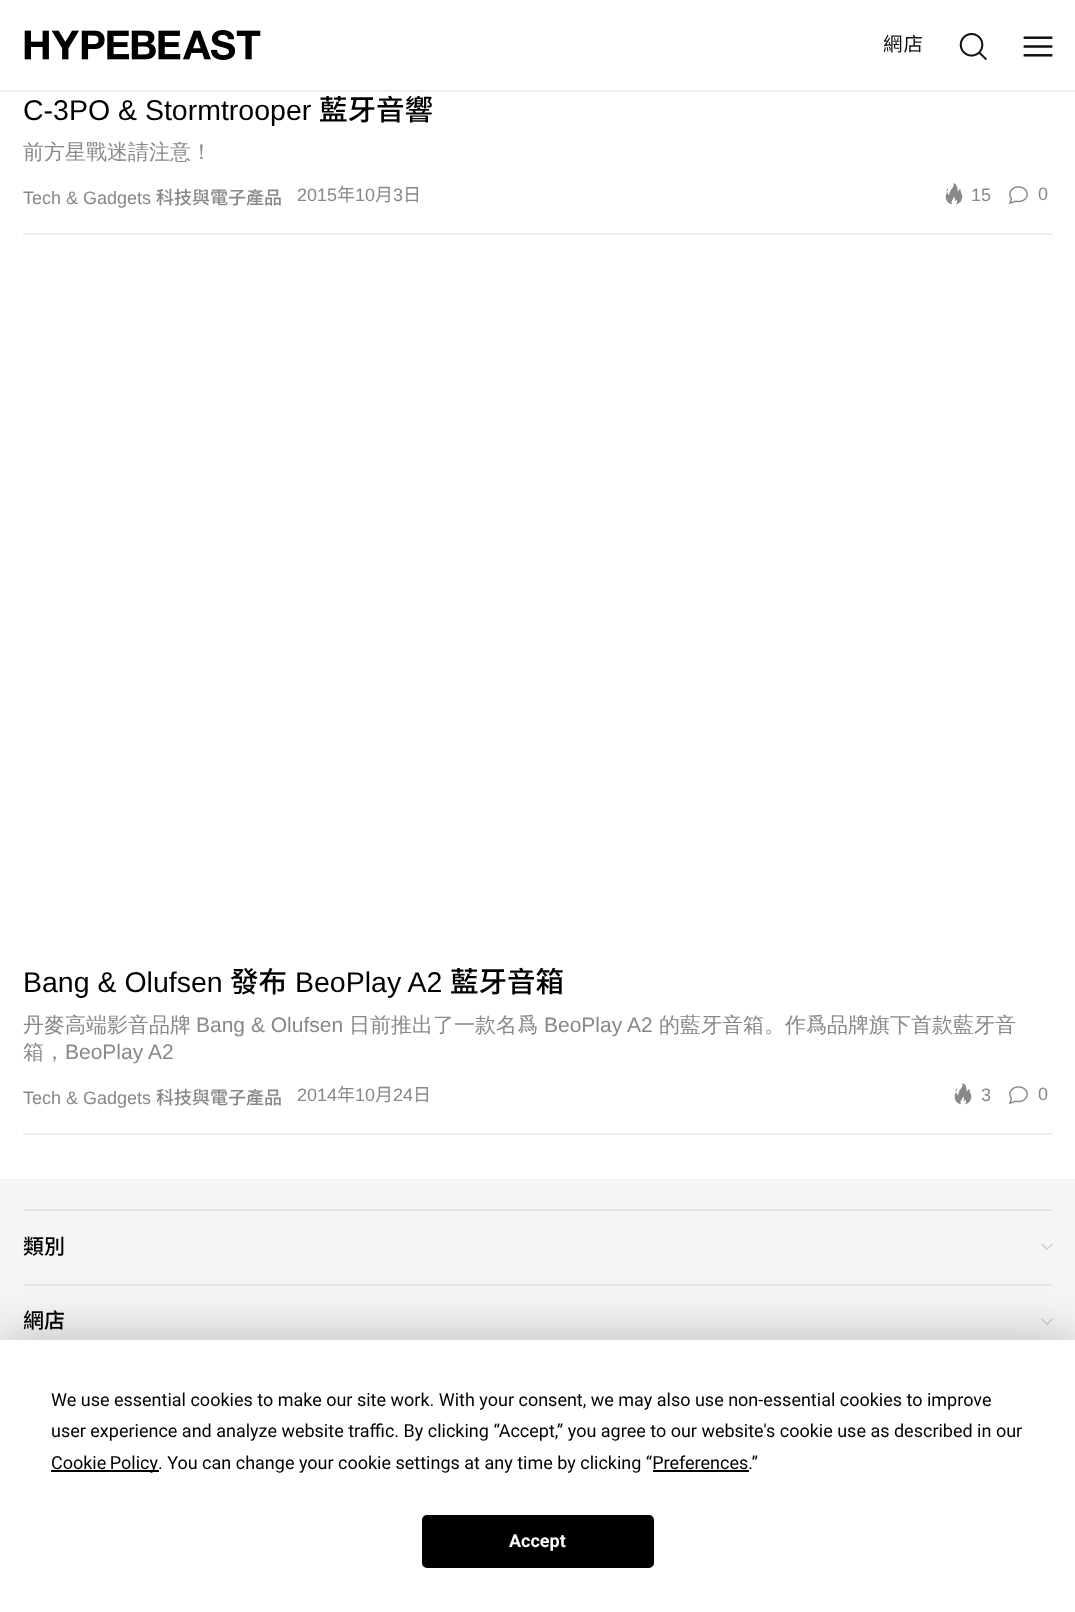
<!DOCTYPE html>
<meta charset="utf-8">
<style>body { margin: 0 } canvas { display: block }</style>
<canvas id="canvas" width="1075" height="1612"></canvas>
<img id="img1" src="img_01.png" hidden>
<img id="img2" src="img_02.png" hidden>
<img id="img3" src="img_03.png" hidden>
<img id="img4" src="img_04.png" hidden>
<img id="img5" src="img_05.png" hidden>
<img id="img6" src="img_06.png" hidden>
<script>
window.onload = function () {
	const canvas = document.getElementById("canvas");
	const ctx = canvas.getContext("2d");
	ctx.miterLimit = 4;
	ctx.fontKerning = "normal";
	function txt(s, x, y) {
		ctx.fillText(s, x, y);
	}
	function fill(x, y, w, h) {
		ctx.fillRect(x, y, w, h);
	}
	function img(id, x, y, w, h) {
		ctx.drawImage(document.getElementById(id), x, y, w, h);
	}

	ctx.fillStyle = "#FFFFFF";
	fill(0, 0, 1075, 1612);
	ctx.fillStyle = "#EEEEEE";
	fill(0, 90, 1075, 2);
	img("img1", 24, 30, 237, 30);
	img("img2", 959, 33, 28, 28);
	img("img3", 1023, 36, 30, 21);
	img("img4", 945, 183, 18, 22);
	img("img5", 1009, 186, 19, 19);
	fill(23, 233, 1030, 2);
	img("img4", 954, 1083, 18, 22);
	img("img5", 1009, 1086, 19, 19);
	fill(23, 1133, 1030, 2);
	ctx.fillStyle = "#F5F5F7";
	fill(0, 1179, 1075, 161);
	ctx.fillStyle = "#E6E6E6";
	fill(23, 1209, 1030, 2);
	img("img6", 1041, 1243, 12, 7);
	fill(23, 1284, 1030, 2);
	img("img6", 1041, 1318, 12, 7);
	ctx.fillStyle = "rgba(0, 0, 0, 0.25)";
	ctx.filter = "blur(26px)";
	ctx.beginPath();
	ctx.rect(0, 1340, 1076, 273);
	ctx.fill();
	ctx.filter = "none";
	ctx.fillStyle = "#FFFFFF";
	fill(0, 1340, 1075, 272);
	ctx.fillStyle = "#000000";
	fill(51, 1470, 108, 2);
	fill(653, 1470, 96, 2);
	ctx.beginPath();
	ctx.roundRect(423, 1516, 230, 51, 4);
	ctx.fill();
	ctx.strokeStyle = "#000000";
	ctx.lineWidth = 2;
	ctx.stroke();
	ctx.letterSpacing = "1px";
	ctx.font = "19.5px Noto Sans TC";
	ctx.fillStyle = "#111111";
	txt("網店", 883, 51);
	ctx.letterSpacing = "0px";
	ctx.font = "28.5px Liberation Sans";
	ctx.fillStyle = "#000000";
	txt("C-3PO & Stormtrooper", 23, 120);
	ctx.font = "500 28.5px Noto Sans TC";
	txt("藍牙音響", 319, 120);
	ctx.font = "500 21px WenQuanYi Zen Hei";
	ctx.fillStyle = "#888888";
	txt("前方星戰迷請注意！", 23, 159);
	ctx.font = "18px Liberation Sans";
	txt("Tech & Gadgets", 23, 204);
	ctx.font = "500 18px Noto Sans TC";
	txt("科技與電子產品", 156, 204);
	ctx.font = "18px Liberation Sans";
	txt("2015", 297, 201);
	ctx.font = "18px Noto Sans TC";
	txt("年", 337, 201);
	ctx.font = "18px Liberation Sans";
	txt("10", 355, 201);
	ctx.font = "18px Noto Sans TC";
	txt("月", 375, 201);
	ctx.font = "18px Liberation Sans";
	txt("3", 393, 201);
	ctx.font = "18px Noto Sans TC";
	txt("日", 403, 201);
	ctx.font = "18px Liberation Sans";
	txt("15", 971, 201);
	txt("0", 1038, 200);
	ctx.font = "28.5px Liberation Sans";
	ctx.fillStyle = "#000000";
	txt("Bang & Olufsen", 23, 992);
	ctx.font = "500 28.5px Noto Sans TC";
	txt("發布", 230, 992);
	ctx.font = "28.5px Liberation Sans";
	txt("BeoPlay A2", 295, 992);
	ctx.font = "500 28.5px Noto Sans TC";
	txt("藍牙音箱", 450, 992);
	ctx.font = "500 21px WenQuanYi Zen Hei";
	ctx.fillStyle = "#888888";
	txt("丹麥高端影音品牌", 23, 1032);
	ctx.font = "21px Liberation Sans";
	txt("Bang & Olufsen", 196, 1032);
	ctx.font = "500 21px WenQuanYi Zen Hei";
	txt("日前推出了一款名爲", 349, 1032);
	ctx.font = "21px Liberation Sans";
	txt("BeoPlay A2", 544, 1032);
	ctx.font = "500 21px WenQuanYi Zen Hei";
	txt("的藍牙音箱。作爲品牌旗下首款藍牙音", 659, 1032);
	txt("箱，", 23, 1059);
	ctx.font = "21px Liberation Sans";
	txt("BeoPlay A2", 65, 1059);
	ctx.font = "18px Liberation Sans";
	txt("Tech & Gadgets", 23, 1104);
	ctx.font = "500 18px Noto Sans TC";
	txt("科技與電子產品", 156, 1104);
	ctx.font = "18px Liberation Sans";
	txt("2014", 297, 1101);
	ctx.font = "18px Noto Sans TC";
	txt("年", 337, 1101);
	ctx.font = "18px Liberation Sans";
	txt("10", 355, 1101);
	ctx.font = "18px Noto Sans TC";
	txt("月", 375, 1101);
	ctx.font = "18px Liberation Sans";
	txt("24", 393, 1101);
	ctx.font = "18px Noto Sans TC";
	txt("日", 413, 1101);
	ctx.font = "18px Liberation Sans";
	txt("3", 981, 1101);
	txt("0", 1038, 1100);
	ctx.font = "500 21px Noto Sans TC";
	ctx.fillStyle = "#000000";
	txt("類別", 23, 1254);
	txt("網店", 23, 1328);
	ctx.font = "18px Roboto";
	txt("We use essential cookies to make our site work. With your consent, we may also use non-essential cookies to improve", 51, 1406);
	txt("user experience and analyze website traffic. By clicking “Accept,” you agree to our website's cookie use as described in our", 51, 1437);
	ctx.wordSpacing = "-1px";
	txt("Cookie Policy", 51, 1469);
	ctx.wordSpacing = "0px";
	txt(". You can change your cookie settings at any time by clicking “Preferences.”", 158, 1469);
	ctx.font = "bold 18px Roboto";
	ctx.fillStyle = "#FFFFFF";
	txt("Accept", 509, 1547);
};
</script>
